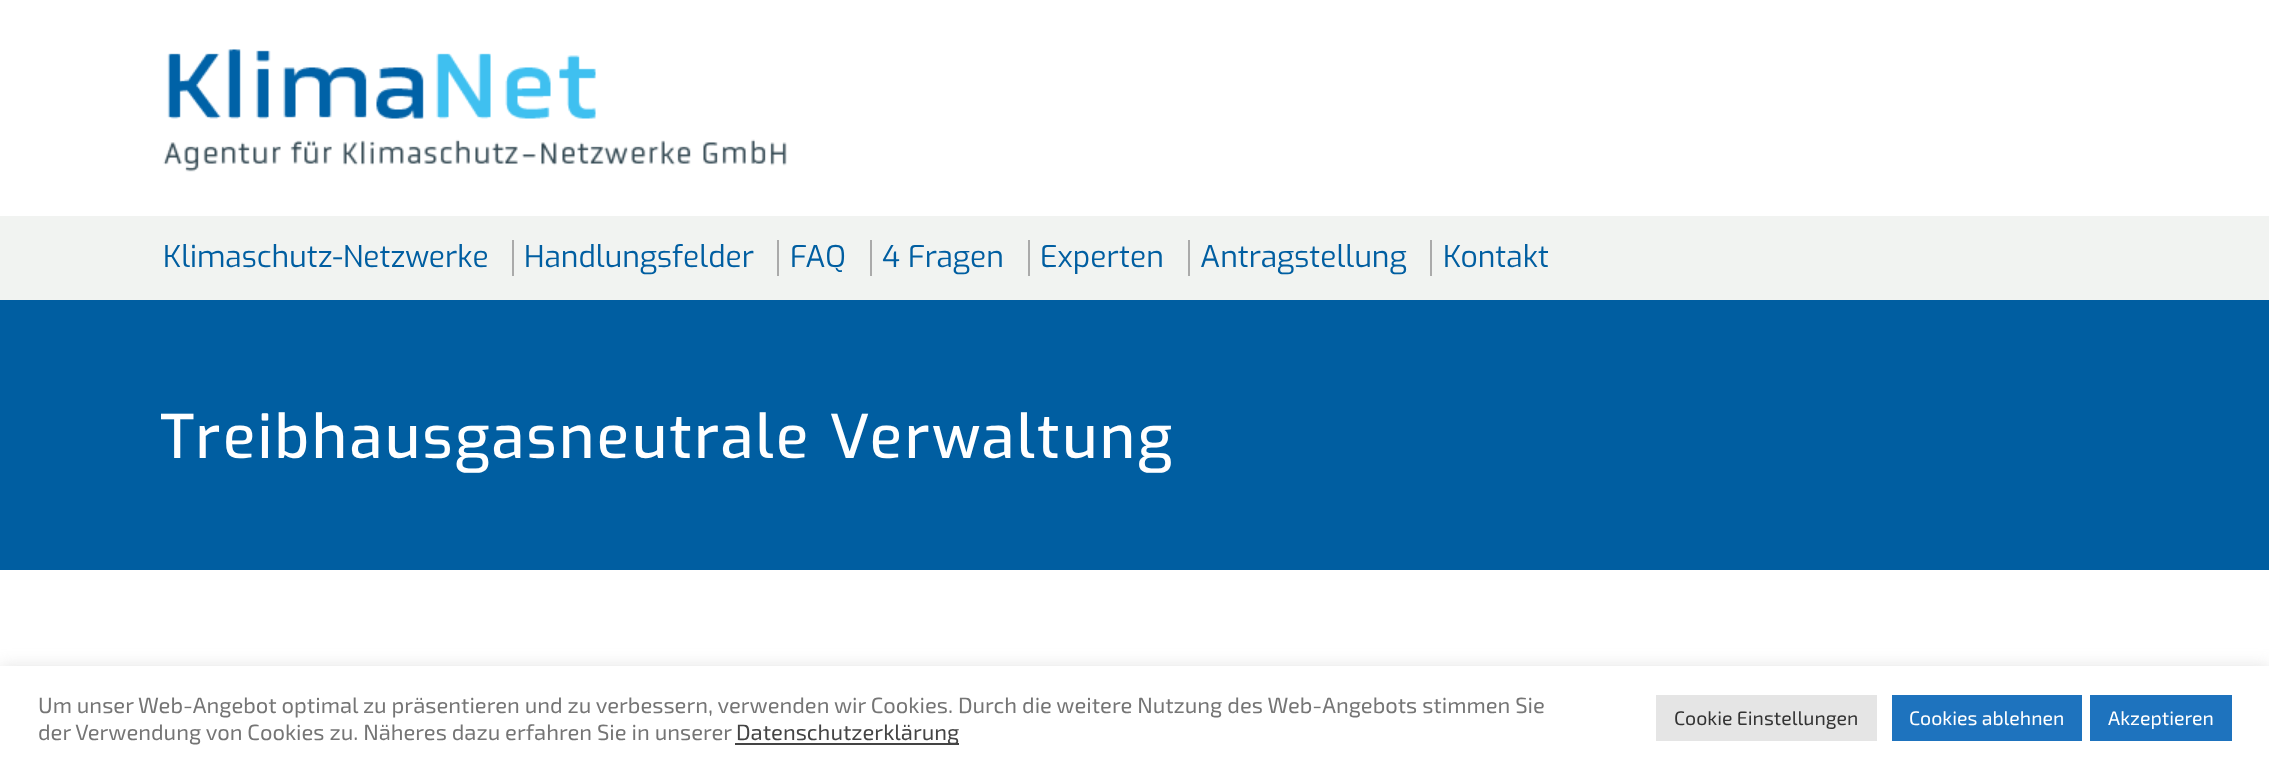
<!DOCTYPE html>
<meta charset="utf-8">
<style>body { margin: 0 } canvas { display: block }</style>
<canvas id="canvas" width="2269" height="769"></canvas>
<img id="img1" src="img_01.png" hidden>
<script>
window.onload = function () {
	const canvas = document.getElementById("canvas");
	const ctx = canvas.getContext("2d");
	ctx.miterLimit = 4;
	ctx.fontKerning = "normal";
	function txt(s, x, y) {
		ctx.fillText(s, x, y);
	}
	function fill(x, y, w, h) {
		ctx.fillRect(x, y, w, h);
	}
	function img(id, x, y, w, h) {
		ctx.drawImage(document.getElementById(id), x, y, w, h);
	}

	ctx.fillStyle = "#FFFFFF";
	fill(0, 0, 2269, 769);
	img("img1", 163, 49, 624, 123);
	ctx.fillStyle = "#F1F3F1";
	fill(0, 216, 2269, 84);
	ctx.fillStyle = "#AAAAAA";
	fill(512, 240, 2, 36);
	fill(777, 240, 2, 36);
	fill(870, 240, 2, 36);
	fill(1028, 240, 2, 36);
	fill(1188, 240, 2, 36);
	fill(1430, 240, 2, 36);
	ctx.fillStyle = "#005EA1";
	fill(0, 300, 2269, 270);
	ctx.fillStyle = "rgba(172, 171, 171, 0.3)";
	ctx.filter = "blur(7.5px)";
	ctx.beginPath();
	ctx.rect(0, 665, 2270, 103);
	ctx.fill();
	ctx.filter = "none";
	ctx.fillStyle = "#FFFFFF";
	fill(0, 666, 2269, 103);
	ctx.fillStyle = "#444444";
	fill(735, 743, 224, 2);
	ctx.fillStyle = "#E5E5E5";
	fill(1656, 695, 221, 46);
	ctx.fillStyle = "#1E73BE";
	fill(1892, 695, 190, 46);
	fill(2090, 695, 142, 46);
	ctx.font = "30px Exo";
	ctx.fillStyle = "#005EA1";
	txt("Klimaschutz-Netzwerke", 163, 267);
	txt("Handlungsfelder", 524, 267);
	txt("FAQ", 790, 267);
	txt("4 Fragen", 882, 267);
	txt("Experten", 1040, 267);
	txt("Antragstellung", 1200, 267);
	txt("Kontakt", 1443, 267);
	ctx.save();
	ctx.beginPath();
	ctx.rect(161, 407, 1014, 66);
	ctx.clip();
	ctx.letterSpacing = "2.4px";
	ctx.font = "500 60px Exo";
	ctx.fillStyle = "#FFFFFF";
	txt("Treibhausgasneutrale Verwaltung", 160, 458);
	ctx.restore();
	ctx.font = "22px 'Exo 2'";
	ctx.fillStyle = "#757575";
	txt("Um unser Web-Angebot optimal zu präsentieren und zu verbessern, verwenden wir Cookies. Durch die weitere Nutzung des Web-Angebots stimmen Sie", 38, 713);
	txt("der Verwendung von Cookies zu. Näheres dazu erfahren Sie in unserer", 38, 740);
	ctx.fillStyle = "#444444";
	txt("Datenschutzerklärung", 736, 740);
	ctx.font = "19.5px 'Exo 2'";
	ctx.fillStyle = "#333333";
	txt("Cookie Einstellungen", 1674, 725);
	ctx.fillStyle = "#FFFFFF";
	txt("Cookies ablehnen", 1909, 725);
	txt("Akzeptieren", 2108, 725);
};
</script>
